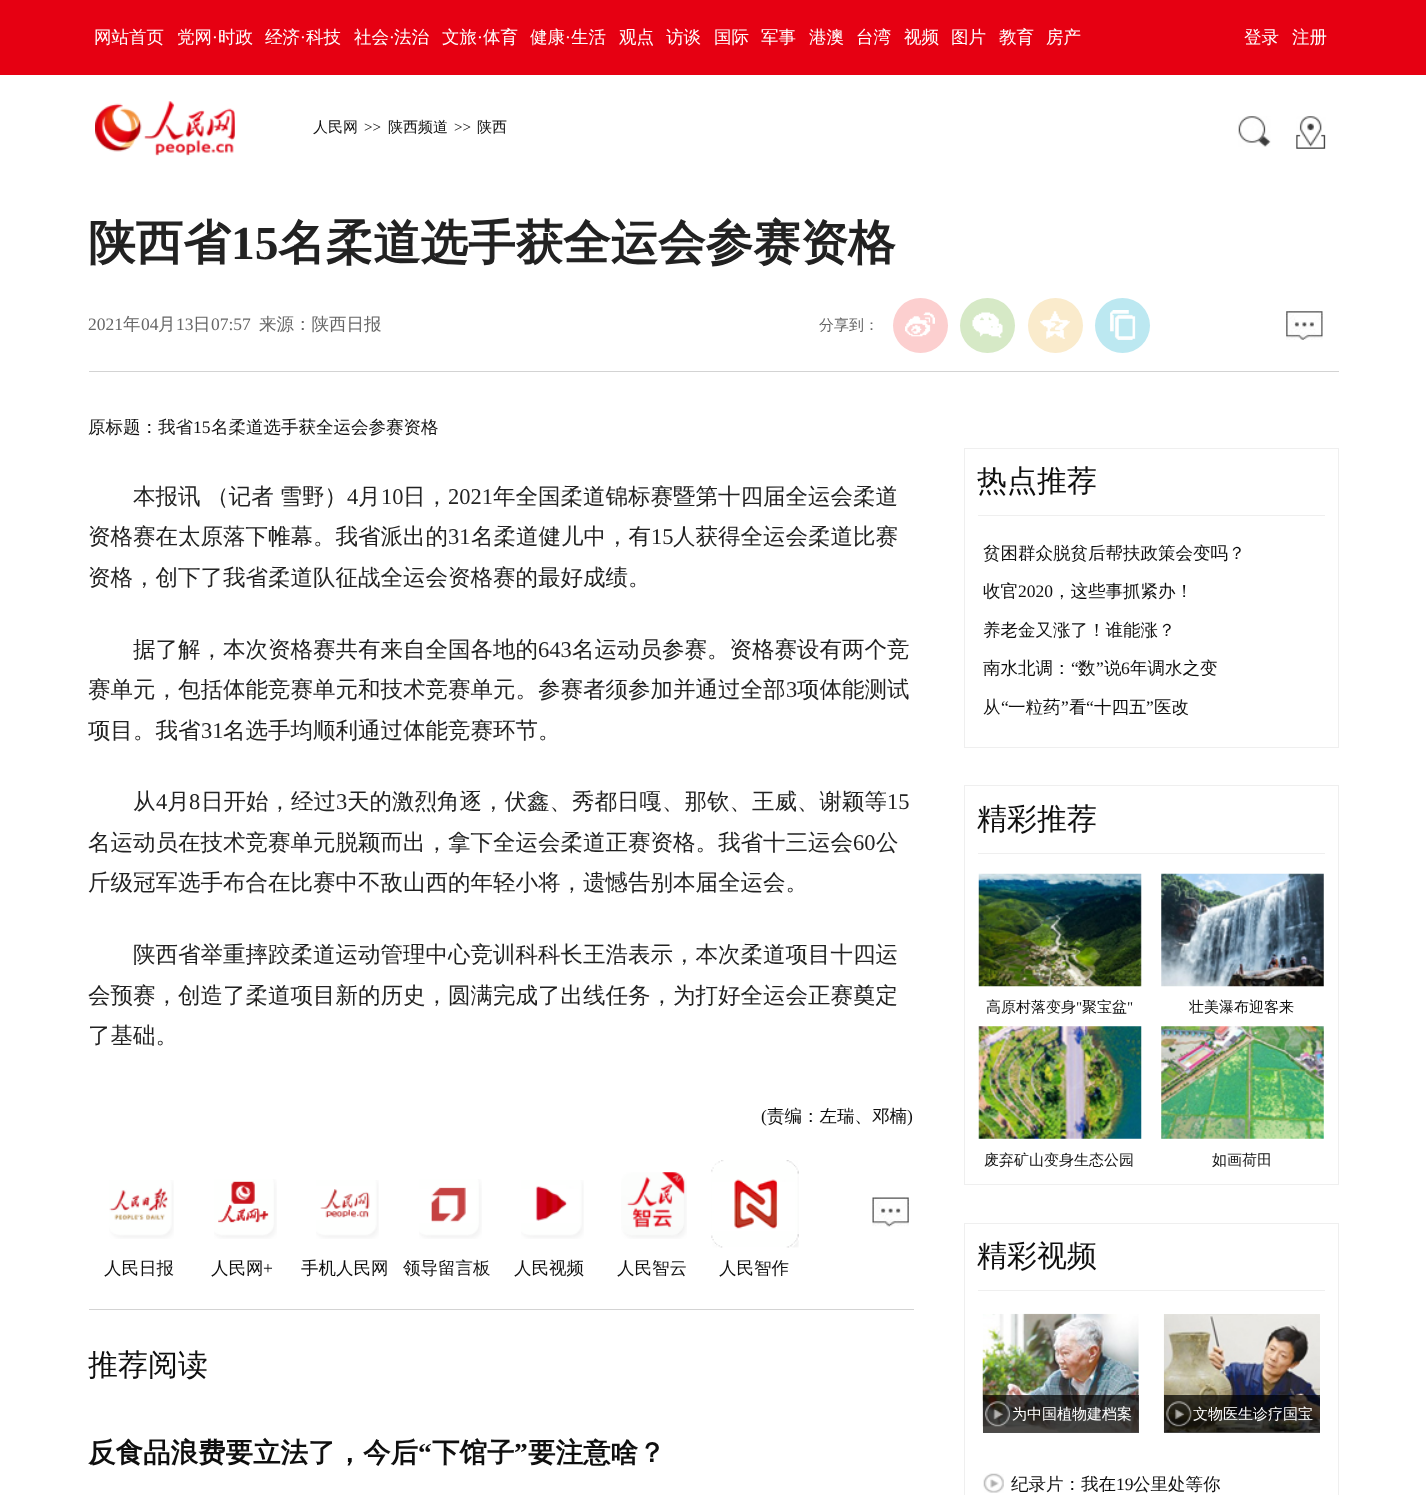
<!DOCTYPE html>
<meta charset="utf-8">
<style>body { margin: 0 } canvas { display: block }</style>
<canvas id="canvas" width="1426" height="1495"></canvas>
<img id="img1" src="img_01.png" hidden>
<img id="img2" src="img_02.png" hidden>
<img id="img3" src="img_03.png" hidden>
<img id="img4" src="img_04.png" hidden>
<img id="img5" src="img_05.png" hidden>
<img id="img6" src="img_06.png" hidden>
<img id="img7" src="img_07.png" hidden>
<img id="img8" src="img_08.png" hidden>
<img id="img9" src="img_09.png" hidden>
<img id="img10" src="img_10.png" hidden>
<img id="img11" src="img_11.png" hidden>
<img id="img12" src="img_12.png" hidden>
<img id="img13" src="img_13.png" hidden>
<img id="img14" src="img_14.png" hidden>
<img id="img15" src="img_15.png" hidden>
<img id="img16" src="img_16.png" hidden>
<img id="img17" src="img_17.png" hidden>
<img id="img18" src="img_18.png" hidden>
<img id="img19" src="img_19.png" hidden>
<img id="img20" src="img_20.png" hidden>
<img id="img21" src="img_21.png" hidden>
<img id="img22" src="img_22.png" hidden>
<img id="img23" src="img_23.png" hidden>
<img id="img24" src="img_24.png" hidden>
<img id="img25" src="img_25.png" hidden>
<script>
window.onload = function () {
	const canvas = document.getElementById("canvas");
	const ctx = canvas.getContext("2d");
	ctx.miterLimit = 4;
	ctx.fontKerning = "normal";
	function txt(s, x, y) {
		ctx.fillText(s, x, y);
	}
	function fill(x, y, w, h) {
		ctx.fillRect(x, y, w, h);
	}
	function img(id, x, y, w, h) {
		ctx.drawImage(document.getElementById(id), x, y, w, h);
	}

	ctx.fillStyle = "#FFFFFF";
	fill(0, 0, 1426, 1495);
	ctx.fillStyle = "#E60012";
	fill(0, 0, 1426, 75);
	img("img1", 95, 101, 140, 55);
	img("img2", 1238, 116, 33, 31);
	img("img3", 1296, 116, 30, 33);
	ctx.fillStyle = "#D3D3D3";
	fill(89, 371, 1250, 1);
	ctx.fillStyle = "#FCCFCF";
	ctx.beginPath();
	ctx.arc(920.5, 325.5, 27.5, 0, Math.PI * 2);
	ctx.fill();
	img("img4", 905, 312, 30, 25);
	ctx.fillStyle = "#D6E9C6";
	ctx.beginPath();
	ctx.arc(987.5, 325.5, 27.5, 0, Math.PI * 2);
	ctx.fill();
	img("img5", 972, 312, 31, 26);
	ctx.fillStyle = "#FAEBCC";
	ctx.beginPath();
	ctx.arc(1055.5, 325.5, 27.5, 0, Math.PI * 2);
	ctx.fill();
	img("img6", 1040, 311, 30, 28);
	ctx.fillStyle = "#BCE8F1";
	ctx.beginPath();
	ctx.arc(1122.5, 325.5, 27.5, 0, Math.PI * 2);
	ctx.fill();
	img("img7", 1110, 310, 26, 30);
	img("img8", 1286, 311, 37, 29);
	ctx.fillStyle = "#D3D3D3";
	fill(89, 1309, 825, 1);
	img("img9", 872, 1197, 37, 30);
	img("img10", 109, 1180, 65, 59);
	img("img11", 214, 1179, 63, 60);
	img("img12", 316, 1180, 63, 59);
	img("img13", 419, 1179, 63, 60);
	img("img14", 521, 1180, 63, 59);
	img("img15", 621, 1172, 66, 67);
	img("img16", 711, 1160, 88, 88);
	ctx.strokeStyle = "#EFEFEF";
	ctx.strokeRect(964.5, 448.5, 374, 299);
	ctx.fillStyle = "#EFEFEF";
	fill(978, 515, 347, 1);
	ctx.strokeRect(964.5, 785.5, 374, 399);
	fill(978, 853, 347, 1);
	img("img17", 978, 873, 164, 114);
	img("img18", 1161, 873, 163, 114);
	img("img19", 978, 1026, 164, 113);
	img("img20", 1161, 1026, 163, 113);
	ctx.strokeRect(964.5, 1223.5, 374, 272);
	fill(978, 1290, 347, 1);
	img("img21", 982, 1313, 157, 120);
	ctx.fillStyle = "rgba(0, 0, 0, 0.7)";
	fill(983, 1395, 156, 38);
	img("img22", 985, 1401, 25, 26);
	img("img23", 1163, 1314, 157, 119);
	fill(1164, 1395, 156, 38);
	img("img24", 1166, 1401, 26, 26);
	img("img25", 983, 1473, 21, 20);
	ctx.font = "500 17.5px WenQuanYi Zen Hei";
	ctx.fillStyle = "#FFFFFF";
	txt("网站首页", 94, 43);
	txt("党网", 177, 43);
	ctx.font = "17.5px Liberation Serif";
	txt("·", 212, 43);
	ctx.font = "500 17.5px WenQuanYi Zen Hei";
	txt("时政", 218, 43);
	txt("经济", 265, 43);
	ctx.font = "17.5px Liberation Serif";
	txt("·", 300, 43);
	ctx.font = "500 17.5px WenQuanYi Zen Hei";
	txt("科技", 306, 43);
	txt("社会", 354, 43);
	ctx.font = "17.5px Liberation Serif";
	txt("·", 389, 43);
	ctx.font = "500 17.5px WenQuanYi Zen Hei";
	txt("法治", 394, 43);
	txt("文旅", 442, 43);
	ctx.font = "17.5px Liberation Serif";
	txt("·", 477, 43);
	ctx.font = "500 17.5px WenQuanYi Zen Hei";
	txt("体育", 483, 43);
	txt("健康", 530, 43);
	ctx.font = "17.5px Liberation Serif";
	txt("·", 565, 43);
	ctx.font = "500 17.5px WenQuanYi Zen Hei";
	txt("生活", 571, 43);
	txt("观点", 619, 43);
	txt("访谈", 666, 43);
	txt("国际", 714, 43);
	txt("军事", 761, 43);
	txt("港澳", 809, 43);
	txt("台湾", 856, 43);
	txt("视频", 904, 43);
	txt("图片", 951, 43);
	txt("教育", 999, 43);
	txt("房产", 1046, 43);
	txt("登录", 1244, 43);
	txt("注册", 1292, 43);
	ctx.font = "500 15px WenQuanYi Zen Hei";
	ctx.fillStyle = "#0F0F0F";
	txt("人民网", 313, 132);
	ctx.font = "15px Liberation Serif";
	txt(">>", 364, 132);
	ctx.font = "500 15px WenQuanYi Zen Hei";
	txt("陕西频道", 388, 132);
	ctx.font = "15px Liberation Serif";
	txt(">>", 454, 132);
	ctx.font = "500 15px WenQuanYi Zen Hei";
	txt("陕西", 477, 132);
	ctx.font = "bold 47.5px WenQuanYi Zen Hei";
	ctx.fillStyle = "#222222";
	txt("陕西省", 88, 259);
	ctx.font = "bold 47.5px Liberation Serif";
	txt("15", 231, 259);
	ctx.font = "bold 47.5px WenQuanYi Zen Hei";
	txt("名柔道选手获全运会参赛资格", 278, 259);
	ctx.font = "17.5px Liberation Serif";
	ctx.fillStyle = "#666666";
	txt("2021", 88, 330);
	ctx.font = "500 17.5px WenQuanYi Zen Hei";
	txt("年", 123, 330);
	ctx.font = "17.5px Liberation Serif";
	txt("04", 141, 330);
	ctx.font = "500 17.5px WenQuanYi Zen Hei";
	txt("月", 158, 330);
	ctx.font = "17.5px Liberation Serif";
	txt("13", 176, 330);
	ctx.font = "500 17.5px WenQuanYi Zen Hei";
	txt("日", 193, 330);
	ctx.font = "17.5px Liberation Serif";
	txt("07:57", 211, 330);
	ctx.font = "500 17.5px WenQuanYi Zen Hei";
	txt("来源：陕西日报", 259, 330);
	ctx.font = "500 15px WenQuanYi Zen Hei";
	txt("分享到：", 819, 330);
	ctx.font = "500 17.5px WenQuanYi Zen Hei";
	ctx.fillStyle = "#0F0F0F";
	txt("原标题：我省", 88, 433);
	ctx.font = "17.5px Liberation Serif";
	txt("15", 193, 433);
	ctx.font = "500 17.5px WenQuanYi Zen Hei";
	txt("名柔道选手获全运会参赛资格", 211, 433);
	ctx.wordSpacing = "-1px";
	ctx.font = "500 22.5px WenQuanYi Zen Hei";
	ctx.fillStyle = "#222222";
	txt("本报讯 （记者 雪野）", 133, 504);
	ctx.wordSpacing = "0px";
	ctx.font = "22.5px Liberation Serif";
	txt("4", 347, 504);
	ctx.font = "500 22.5px WenQuanYi Zen Hei";
	txt("月", 358, 504);
	ctx.font = "22.5px Liberation Serif";
	txt("10", 381, 504);
	ctx.font = "500 22.5px WenQuanYi Zen Hei";
	txt("日，", 403, 504);
	ctx.font = "22.5px Liberation Serif";
	txt("2021", 448, 504);
	ctx.font = "500 22.5px WenQuanYi Zen Hei";
	txt("年全国柔道锦标赛暨第十四届全运会柔道", 493, 504);
	txt("资格赛在太原落下帷幕。我省派出的", 88, 544);
	ctx.font = "22.5px Liberation Serif";
	txt("31", 448, 544);
	ctx.font = "500 22.5px WenQuanYi Zen Hei";
	txt("名柔道健儿中，有", 471, 544);
	ctx.font = "22.5px Liberation Serif";
	txt("15", 651, 544);
	ctx.font = "500 22.5px WenQuanYi Zen Hei";
	txt("人获得全运会柔道比赛", 673, 544);
	txt("资格，创下了我省柔道队征战全运会资格赛的最好成绩。", 88, 585);
	txt("据了解，本次资格赛共有来自全国各地的", 133, 657);
	ctx.font = "22.5px Liberation Serif";
	txt("643", 538, 657);
	ctx.font = "500 22.5px WenQuanYi Zen Hei";
	txt("名运动员参赛。资格赛设有两个竞", 572, 657);
	txt("赛单元，包括体能竞赛单元和技术竞赛单元。参赛者须参加并通过全部", 88, 697);
	ctx.font = "22.5px Liberation Serif";
	txt("3", 786, 697);
	ctx.font = "500 22.5px WenQuanYi Zen Hei";
	txt("项体能测试", 797, 697);
	txt("项目。我省", 88, 738);
	ctx.font = "22.5px Liberation Serif";
	txt("31", 201, 738);
	ctx.font = "500 22.5px WenQuanYi Zen Hei";
	txt("名选手均顺利通过体能竞赛环节。", 223, 738);
	txt("从", 133, 809);
	ctx.font = "22.5px Liberation Serif";
	txt("4", 156, 809);
	ctx.font = "500 22.5px WenQuanYi Zen Hei";
	txt("月", 167, 809);
	ctx.font = "22.5px Liberation Serif";
	txt("8", 189, 809);
	ctx.font = "500 22.5px WenQuanYi Zen Hei";
	txt("日开始，经过", 201, 809);
	ctx.font = "22.5px Liberation Serif";
	txt("3", 336, 809);
	ctx.font = "500 22.5px WenQuanYi Zen Hei";
	txt("天的激烈角逐，伏鑫、秀都日嘎、那钦、王威、谢颖等", 347, 809);
	ctx.font = "22.5px Liberation Serif";
	txt("15", 887, 809);
	ctx.font = "500 22.5px WenQuanYi Zen Hei";
	txt("名运动员在技术竞赛单元脱颖而出，拿下全运会柔道正赛资格。我省十三运会", 88, 850);
	ctx.font = "22.5px Liberation Serif";
	txt("60", 853, 850);
	ctx.font = "500 22.5px WenQuanYi Zen Hei";
	txt("公", 876, 850);
	txt("斤级冠军选手布合在比赛中不敌山西的年轻小将，遗憾告别本届全运会。", 88, 890);
	txt("陕西省举重摔跤柔道运动管理中心竞训科科长王浩表示，本次柔道项目十四运", 133, 962);
	txt("会预赛，创造了柔道项目新的历史，圆满完成了出线任务，为打好全运会正赛奠定", 88, 1003);
	txt("了基础。", 88, 1043);
	ctx.font = "17.5px Liberation Serif";
	ctx.fillStyle = "#0F0F0F";
	txt("(", 761, 1122);
	ctx.font = "500 17.5px WenQuanYi Zen Hei";
	txt("责编：左瑞、邓楠", 767, 1122);
	ctx.font = "17.5px Liberation Serif";
	txt(")", 907, 1122);
	ctx.font = "500 17.5px WenQuanYi Zen Hei";
	txt("人民日报", 104, 1274);
	txt("人民网", 211, 1274);
	ctx.font = "17.5px Liberation Serif";
	txt("+", 263, 1274);
	ctx.font = "500 17.5px WenQuanYi Zen Hei";
	txt("手机人民网", 301, 1274);
	txt("领导留言板", 403, 1274);
	txt("人民视频", 514, 1274);
	txt("人民智云", 617, 1274);
	txt("人民智作", 719, 1274);
	ctx.font = "500 30px WenQuanYi Zen Hei";
	txt("推荐阅读", 88, 1375);
	ctx.font = "bold 27.5px WenQuanYi Zen Hei";
	txt("反食品浪费要立法了，今后", 88, 1462);
	ctx.font = "bold 27.5px Liberation Serif";
	txt("“", 418, 1462);
	ctx.font = "bold 27.5px WenQuanYi Zen Hei";
	txt("下馆子", 432, 1462);
	ctx.font = "bold 27.5px Liberation Serif";
	txt("”", 514, 1462);
	ctx.font = "bold 27.5px WenQuanYi Zen Hei";
	txt("要注意啥？", 528, 1462);
	ctx.font = "500 30px WenQuanYi Zen Hei";
	txt("热点推荐", 977, 491);
	ctx.font = "500 17.5px WenQuanYi Zen Hei";
	txt("贫困群众脱贫后帮扶政策会变吗？", 983, 559);
	txt("收官", 983, 597);
	ctx.font = "17.5px Liberation Serif";
	txt("2020", 1018, 597);
	ctx.font = "500 17.5px WenQuanYi Zen Hei";
	txt("，这些事抓紧办！", 1053, 597);
	txt("养老金又涨了！谁能涨？", 983, 636);
	txt("南水北调：", 983, 674);
	ctx.font = "17.5px Liberation Serif";
	txt("“", 1071, 674);
	ctx.font = "500 17.5px WenQuanYi Zen Hei";
	txt("数", 1078, 674);
	ctx.font = "17.5px Liberation Serif";
	txt("”", 1096, 674);
	ctx.font = "500 17.5px WenQuanYi Zen Hei";
	txt("说", 1104, 674);
	ctx.font = "17.5px Liberation Serif";
	txt("6", 1121, 674);
	ctx.font = "500 17.5px WenQuanYi Zen Hei";
	txt("年调水之变", 1130, 674);
	txt("从", 983, 713);
	ctx.font = "17.5px Liberation Serif";
	txt("“", 1001, 713);
	ctx.font = "500 17.5px WenQuanYi Zen Hei";
	txt("一粒药", 1008, 713);
	ctx.font = "17.5px Liberation Serif";
	txt("”", 1061, 713);
	ctx.font = "500 17.5px WenQuanYi Zen Hei";
	txt("看", 1069, 713);
	ctx.font = "17.5px Liberation Serif";
	txt("“", 1086, 713);
	ctx.font = "500 17.5px WenQuanYi Zen Hei";
	txt("十四五", 1094, 713);
	ctx.font = "17.5px Liberation Serif";
	txt("”", 1146, 713);
	ctx.font = "500 17.5px WenQuanYi Zen Hei";
	txt("医改", 1154, 713);
	ctx.font = "500 30px WenQuanYi Zen Hei";
	txt("精彩推荐", 977, 829);
	ctx.font = "500 15px WenQuanYi Zen Hei";
	txt("高原村落变身", 986, 1012);
	ctx.font = "15px Liberation Serif";
	txt("\"", 1076, 1012);
	ctx.font = "500 15px WenQuanYi Zen Hei";
	txt("聚宝盆", 1082, 1012);
	ctx.font = "15px Liberation Serif";
	txt("\"", 1127, 1012);
	ctx.font = "500 15px WenQuanYi Zen Hei";
	txt("壮美瀑布迎客来", 1189, 1012);
	txt("废弃矿山变身生态公园", 984, 1165);
	txt("如画荷田", 1212, 1165);
	ctx.font = "500 30px WenQuanYi Zen Hei";
	txt("精彩视频", 977, 1266);
	ctx.font = "500 15px WenQuanYi Zen Hei";
	ctx.fillStyle = "#FFFFFF";
	txt("为中国植物建档案", 1012, 1419);
	txt("文物医生诊疗国宝", 1193, 1419);
	ctx.font = "500 17.5px WenQuanYi Zen Hei";
	ctx.fillStyle = "#0F0F0F";
	txt("纪录片：我在", 1011, 1490);
	ctx.font = "17.5px Liberation Serif";
	txt("19", 1116, 1490);
	ctx.font = "500 17.5px WenQuanYi Zen Hei";
	txt("公里处等你", 1133, 1490);
};
</script>
